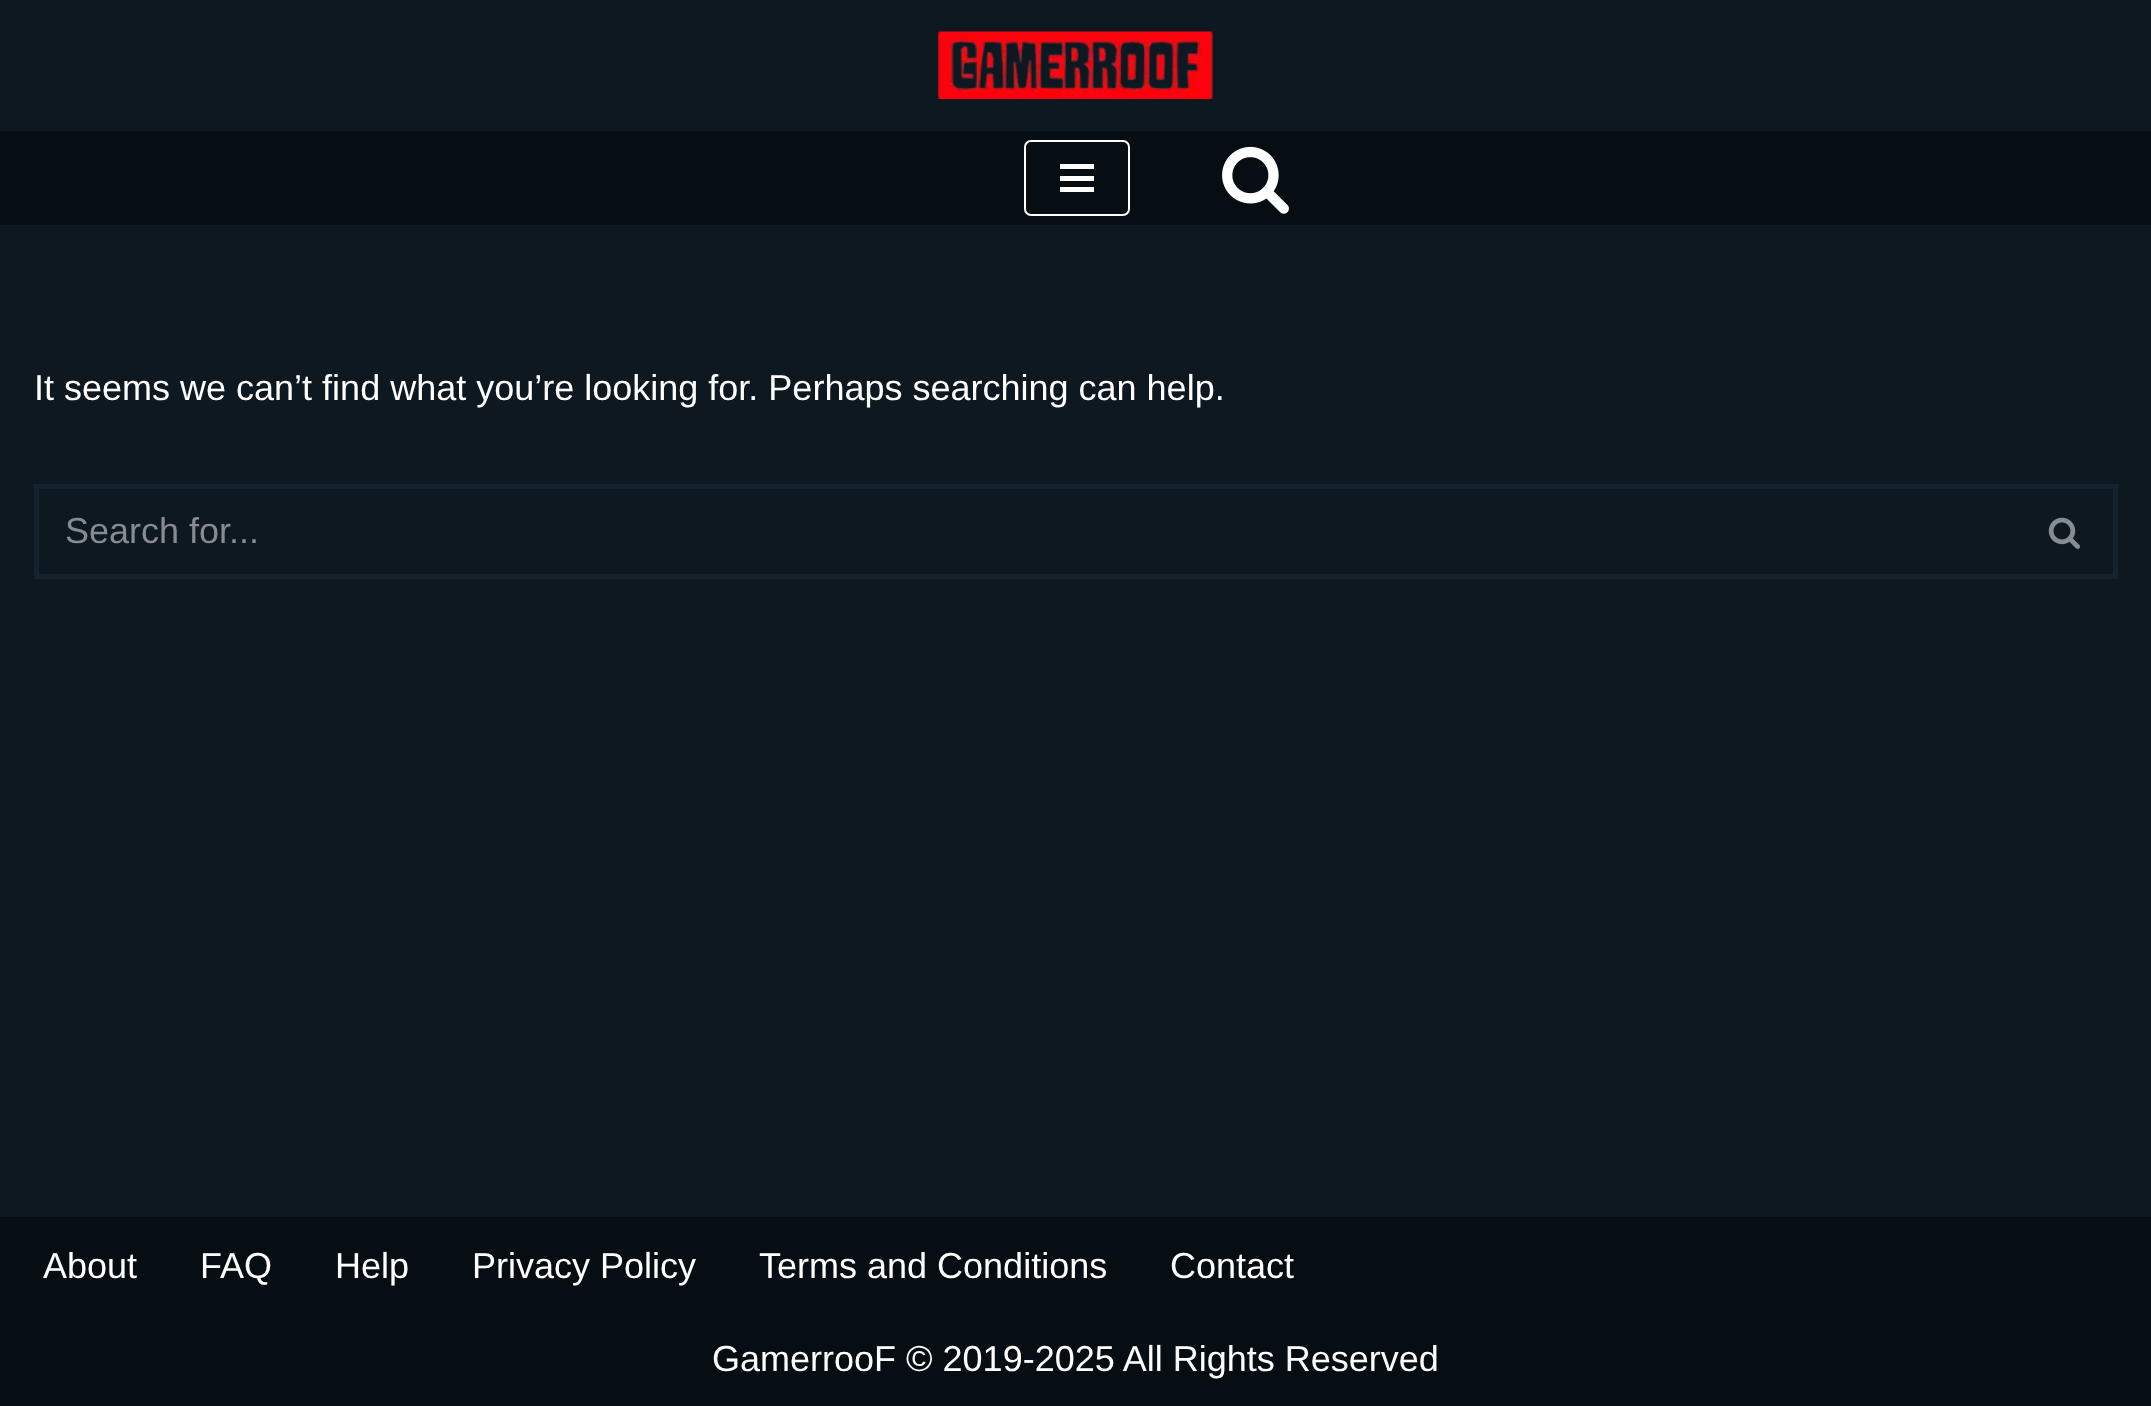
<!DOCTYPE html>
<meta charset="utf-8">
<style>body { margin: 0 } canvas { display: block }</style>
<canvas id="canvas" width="2151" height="1406"></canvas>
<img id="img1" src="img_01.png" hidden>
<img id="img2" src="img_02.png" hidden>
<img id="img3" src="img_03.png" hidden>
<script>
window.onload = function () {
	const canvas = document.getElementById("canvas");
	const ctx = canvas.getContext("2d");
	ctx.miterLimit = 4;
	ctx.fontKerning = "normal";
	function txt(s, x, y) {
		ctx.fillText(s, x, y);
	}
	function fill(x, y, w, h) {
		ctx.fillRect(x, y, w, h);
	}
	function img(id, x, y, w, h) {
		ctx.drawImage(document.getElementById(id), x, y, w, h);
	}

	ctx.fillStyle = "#0D1821";
	fill(0, 0, 2151, 1406);
	img("img1", 938, 31, 275, 68);
	ctx.fillStyle = "#070E13";
	fill(0, 131, 2151, 94);
	ctx.beginPath();
	ctx.roundRect(1025, 141, 104, 74, 6);
	ctx.strokeStyle = "#FFFFFF";
	ctx.lineWidth = 2;
	ctx.stroke();
	ctx.fillStyle = "#FFFFFF";
	fill(1060, 164, 34, 5);
	fill(1060, 176, 34, 5);
	fill(1060, 187, 34, 5);
	img("img2", 1222, 146, 67, 68);
	ctx.fillStyle = "#14232F";
	fill(34, 484, 2083, 5);
	fill(34, 574, 1982, 5);
	fill(34, 484, 5, 94);
	fill(2113, 484, 5, 94);
	fill(2016, 574, 101, 5);
	img("img3", 2048, 517, 32, 32);
	ctx.fillStyle = "#070E13";
	fill(0, 1217, 2151, 189);
	ctx.font = "36px Liberation Sans";
	ctx.fillStyle = "#FFFFFF";
	txt("It seems we can’t find what you’re looking for. Perhaps searching can help.", 34, 400);
	ctx.fillStyle = "#868C90";
	txt("Search for...", 65, 543);
	ctx.fillStyle = "#FFFFFF";
	txt("About", 43, 1278);
	txt("FAQ", 200, 1278);
	txt("Help", 335, 1278);
	txt("Privacy Policy", 472, 1278);
	txt("Terms and Conditions", 759, 1278);
	txt("Contact", 1170, 1278);
	txt("GamerrooF © 2019-2025 All Rights Reserved", 712, 1371);
};
</script>
